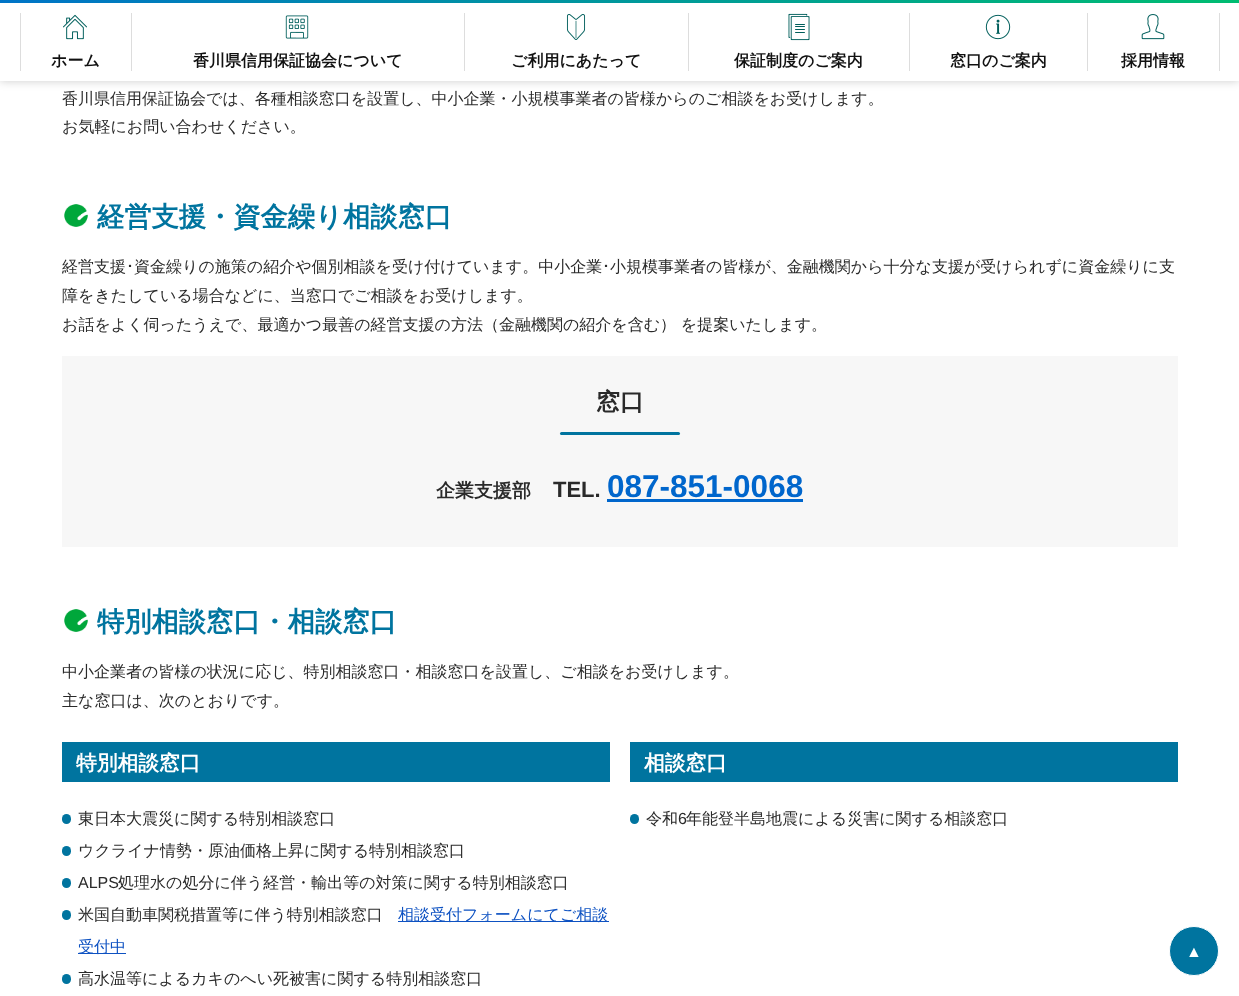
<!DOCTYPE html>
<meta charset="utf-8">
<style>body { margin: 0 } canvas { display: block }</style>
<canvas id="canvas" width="1239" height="996"></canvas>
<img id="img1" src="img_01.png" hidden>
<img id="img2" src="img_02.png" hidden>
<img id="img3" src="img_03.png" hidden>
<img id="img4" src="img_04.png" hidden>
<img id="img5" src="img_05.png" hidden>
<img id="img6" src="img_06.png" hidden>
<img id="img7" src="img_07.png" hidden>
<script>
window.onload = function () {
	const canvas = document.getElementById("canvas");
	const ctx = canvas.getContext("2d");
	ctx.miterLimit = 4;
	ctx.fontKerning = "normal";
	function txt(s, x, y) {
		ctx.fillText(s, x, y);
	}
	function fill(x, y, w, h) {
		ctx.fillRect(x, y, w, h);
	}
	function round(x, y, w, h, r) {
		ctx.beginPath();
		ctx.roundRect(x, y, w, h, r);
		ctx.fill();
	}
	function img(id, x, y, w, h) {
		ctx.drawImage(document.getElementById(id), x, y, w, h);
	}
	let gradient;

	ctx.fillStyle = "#FFFFFF";
	fill(0, 0, 1239, 996);
	ctx.fillStyle = "rgba(0, 0, 0, 0.2)";
	ctx.filter = "blur(5px)";
	ctx.beginPath();
	ctx.rect(0, 0, 1239, 81);
	ctx.fill();
	ctx.filter = "none";
	ctx.fillStyle = "#FFFFFF";
	fill(0, 3, 1239, 78);
	gradient = ctx.createLinearGradient(0, 1.5, 1239, 1.5);
	gradient.addColorStop(0, "#0074C7");
	gradient.addColorStop(1, "#00BC71");
	ctx.fillStyle = gradient;
	fill(0, 0, 1239, 3);
	ctx.fillStyle = "#DDDDDD";
	fill(20, 13, 1, 58);
	img("img1", 63, 14, 24, 26);
	fill(131, 13, 1, 58);
	img("img2", 285, 15, 24, 24);
	fill(464, 13, 1, 58);
	img("img3", 566, 14, 20, 26);
	fill(688, 13, 1, 58);
	img("img4", 788, 13, 22, 28);
	fill(909, 13, 1, 58);
	img("img5", 985, 14, 26, 26);
	fill(1087, 13, 1, 58);
	img("img6", 1141, 14, 24, 26);
	fill(1219, 13, 1, 58);
	img("img7", 64, 204, 24, 23);
	ctx.fillStyle = "#F7F7F7";
	fill(62, 356, 1116, 191);
	ctx.fillStyle = "#00749F";
	round(560, 432, 120, 3, 1.5);
	ctx.fillStyle = "#0066CC";
	fill(607, 499, 196, 3);
	img("img7", 64, 609, 24, 23);
	ctx.fillStyle = "#00749F";
	fill(62, 742, 548, 40);
	round(62, 814, 9, 10, 4.5);
	round(62, 846, 9, 10, 4.5);
	round(62, 878, 9, 10, 4.5);
	round(62, 910, 9, 10, 4.5);
	ctx.fillStyle = "#0E52C2";
	fill(398, 921, 211, 1);
	fill(78, 953, 48, 1);
	ctx.fillStyle = "#00749F";
	round(62, 974, 9, 10, 4.5);
	fill(630, 742, 548, 40);
	round(630, 814, 9, 10, 4.5);
	ctx.beginPath();
	ctx.arc(1194, 951, 24.5, 0, Math.PI * 2);
	ctx.fill();
	ctx.strokeStyle = "#FFFFFF";
	ctx.stroke();
	ctx.font = "bold 16px WenQuanYi Zen Hei";
	ctx.fillStyle = "#111111";
	txt("ホーム", 51, 66);
	txt("香川県信用保証協会について", 193, 66);
	txt("ご利用にあたって", 511, 66);
	txt("保証制度のご案内", 734, 66);
	txt("窓口のご案内", 950, 66);
	txt("採用情報", 1121, 66);
	ctx.font = "500 16px WenQuanYi Zen Hei";
	ctx.fillStyle = "#2A2A2A";
	txt("香川県信用保証協会では、各種相談窓口を設置し、中小企業・小規模事業者の皆様からのご相談をお受けします。", 62, 104);
	txt("お気軽にお問い合わせください。", 62, 132);
	ctx.font = "bold 27.25px WenQuanYi Zen Hei";
	ctx.fillStyle = "#00749F";
	txt("経営支援・資金繰り相談窓口", 97, 226);
	ctx.font = "500 16px WenQuanYi Zen Hei";
	ctx.fillStyle = "#2A2A2A";
	txt("経営支援", 62, 272);
	ctx.font = "16px IPAPGothic";
	txt("･", 126, 272);
	ctx.font = "500 16px WenQuanYi Zen Hei";
	txt("資金繰りの施策の紹介や個別相談を受け付けています。中小企業", 134, 272);
	ctx.font = "16px IPAPGothic";
	txt("･", 602, 272);
	ctx.font = "500 16px WenQuanYi Zen Hei";
	txt("小規模事業者の皆様が、金融機関から十分な支援が受けられずに資金繰りに支", 610, 272);
	txt("障をきたしている場合などに、当窓口でご相談をお受けします。", 62, 301);
	txt("お話をよく伺ったうえで、最適かつ最善の経営支援の方法（金融機関の紹介を含む） を提案いたします。", 62, 330);
	ctx.font = "bold 24px WenQuanYi Zen Hei";
	txt("窓口", 596, 410);
	ctx.font = "bold 19px WenQuanYi Zen Hei";
	txt("企業支援部", 436, 497);
	ctx.font = "bold 22px Liberation Sans";
	txt("TEL.", 553, 497);
	ctx.font = "bold 31.5px Liberation Sans";
	ctx.fillStyle = "#0066CC";
	txt("087-851-0068", 607, 497);
	ctx.font = "bold 27.25px WenQuanYi Zen Hei";
	ctx.fillStyle = "#00749F";
	txt("特別相談窓口・相談窓口", 97, 631);
	ctx.font = "500 16px WenQuanYi Zen Hei";
	ctx.fillStyle = "#2A2A2A";
	txt("中小企業者の皆様の状況に応じ、特別相談窓口・相談窓口を設置し、ご相談をお受けします。", 62, 677);
	txt("主な窓口は、次のとおりです。", 62, 706);
	ctx.font = "bold 20.75px WenQuanYi Zen Hei";
	ctx.fillStyle = "#FFFFFF";
	txt("特別相談窓口", 76, 770);
	ctx.font = "500 16px WenQuanYi Zen Hei";
	ctx.fillStyle = "#2A2A2A";
	txt("東日本大震災に関する特別相談窓口", 78, 824);
	txt("ウクライナ情勢・原油価格上昇に関する特別相談窓口", 78, 856);
	ctx.font = "16px Liberation Sans";
	txt("ALPS", 78, 888);
	ctx.font = "500 16px WenQuanYi Zen Hei";
	txt("処理水の処分に伴う経営・輸出等の対策に関する特別相談窓口", 118, 888);
	txt("米国自動車関税措置等に伴う特別相談窓口", 78, 920);
	ctx.fillStyle = "#0E52C2";
	txt("相談受付フォームにてご相談", 398, 920);
	txt("受付中", 78, 952);
	ctx.fillStyle = "#2A2A2A";
	txt("高水温等によるカキのへい死被害に関する特別相談窓口", 78, 984);
	ctx.font = "bold 20.75px WenQuanYi Zen Hei";
	ctx.fillStyle = "#FFFFFF";
	txt("相談窓口", 644, 770);
	ctx.font = "500 16px WenQuanYi Zen Hei";
	ctx.fillStyle = "#2A2A2A";
	txt("令和", 646, 824);
	ctx.font = "16px Liberation Sans";
	txt("6", 678, 824);
	ctx.font = "500 16px WenQuanYi Zen Hei";
	txt("年能登半島地震による災害に関する相談窓口", 686, 824);
	ctx.font = "16px Liberation Sans";
	ctx.fillStyle = "#FFFFFF";
	txt("▲", 1186, 957);
};
</script>
